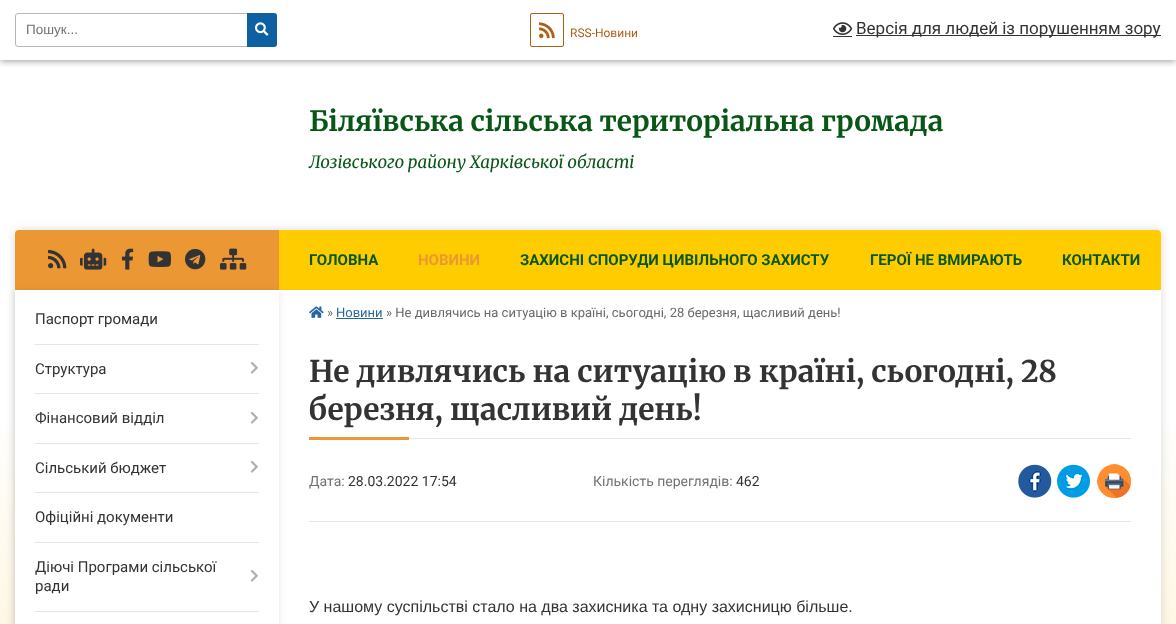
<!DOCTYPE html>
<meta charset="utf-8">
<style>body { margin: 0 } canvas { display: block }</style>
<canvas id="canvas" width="1176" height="624"></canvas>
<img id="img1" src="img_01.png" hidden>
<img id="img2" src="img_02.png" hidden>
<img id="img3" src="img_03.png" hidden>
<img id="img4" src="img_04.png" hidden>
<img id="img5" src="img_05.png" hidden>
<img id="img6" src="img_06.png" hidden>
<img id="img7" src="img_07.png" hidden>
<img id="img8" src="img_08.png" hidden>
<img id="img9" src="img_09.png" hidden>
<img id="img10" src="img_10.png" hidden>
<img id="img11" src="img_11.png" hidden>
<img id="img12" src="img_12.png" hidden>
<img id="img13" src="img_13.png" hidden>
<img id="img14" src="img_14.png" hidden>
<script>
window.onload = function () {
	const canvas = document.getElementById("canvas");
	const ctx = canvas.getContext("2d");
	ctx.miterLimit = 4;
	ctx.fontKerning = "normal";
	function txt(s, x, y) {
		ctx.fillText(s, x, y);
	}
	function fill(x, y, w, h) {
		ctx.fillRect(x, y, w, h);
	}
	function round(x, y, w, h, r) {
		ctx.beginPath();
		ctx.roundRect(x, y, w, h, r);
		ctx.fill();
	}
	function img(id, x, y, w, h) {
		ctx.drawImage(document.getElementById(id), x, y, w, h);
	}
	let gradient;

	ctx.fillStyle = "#FFFFFF";
	fill(0, 0, 1176, 624);
	gradient = ctx.createLinearGradient(588, 0, 588, 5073);
	gradient.addColorStop(0.08, "#FFFFFF");
	gradient.addColorStop(0.16, "#FFF1D0");
	ctx.fillStyle = gradient;
	fill(0, 427, 1176, 197);
	ctx.save();
	ctx.beginPath();
	ctx.rect(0, 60, 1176, 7);
	ctx.clip();
	ctx.fillStyle = "rgba(0, 0, 0, 0.4)";
	ctx.filter = "blur(3.5px)";
	ctx.beginPath();
	ctx.rect(0, 1, 1176, 60);
	ctx.fill();
	ctx.filter = "none";
	ctx.restore();
	ctx.beginPath();
	ctx.roundRect(15.5, 13.5, 261, 33, 2.5);
	ctx.strokeStyle = "#B7B7B7";
	ctx.stroke();
	ctx.fillStyle = "#0D61A2";
	ctx.beginPath();
	ctx.roundRect(247, 13, 30, 34, [0, 3, 3, 0]);
	ctx.fill();
	img("img1", 255, 22, 14, 14);
	ctx.beginPath();
	ctx.roundRect(530.5, 13.5, 33, 33, 1.5);
	ctx.strokeStyle = "#AB5F17";
	ctx.stroke();
	img("img2", 539, 22, 16, 17);
	img("img3", 833, 22, 20, 13);
	ctx.fillStyle = "#333333";
	fill(833, 36, 19, 1);
	fill(856, 35, 305, 1);
	ctx.fillStyle = "rgba(0, 0, 0, 0.15)";
	ctx.filter = "blur(5px)";
	ctx.beginPath();
	ctx.roundRect(15, 230, 1146, 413, 4);
	ctx.fill();
	ctx.filter = "none";
	ctx.fillStyle = "#FFFFFF";
	round(15, 230, 1146, 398, 4);
	ctx.fillStyle = "#EB9834";
	ctx.beginPath();
	ctx.roundRect(15, 230, 264, 60, [4, 0, 0, 0]);
	ctx.fill();
	img("img4", 48, 249, 19, 20);
	img("img5", 80, 248, 27, 22);
	img("img6", 121, 248, 13, 22);
	img("img7", 148, 251, 23, 16);
	img("img8", 185, 249, 21, 21);
	img("img9", 220, 248, 27, 22);
	ctx.fillStyle = "#FFCC00";
	ctx.beginPath();
	ctx.roundRect(279, 230, 882, 60, [0, 4, 0, 0]);
	ctx.fill();
	ctx.save();
	ctx.beginPath();
	ctx.moveTo(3, 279);
	ctx.lineTo(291, 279);
	ctx.lineTo(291, 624);
	ctx.lineTo(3, 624);
	ctx.closePath();
	ctx.moveTo(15, 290);
	ctx.lineTo(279, 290);
	ctx.lineTo(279, 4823);
	ctx.lineTo(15, 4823);
	ctx.closePath();
	ctx.clip("evenodd");
	ctx.fillStyle = "rgba(0, 0, 0, 0.1)";
	ctx.filter = "blur(3.5px)";
	ctx.beginPath();
	ctx.rect(15, 291, 264, 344);
	ctx.fill();
	ctx.filter = "none";
	ctx.restore();
	ctx.fillStyle = "#E6E6E6";
	fill(35, 344, 224, 1);
	fill(35, 393, 224, 1);
	img("img10", 250, 361, 8, 13);
	fill(35, 443, 224, 1);
	img("img10", 250, 411, 8, 13);
	fill(35, 492, 224, 1);
	img("img10", 250, 460, 8, 13);
	fill(35, 542, 224, 1);
	fill(35, 611, 224, 1);
	img("img10", 250, 569, 8, 13);
	img("img11", 309, 306, 15, 12);
	ctx.fillStyle = "#25669C";
	fill(336, 318, 47, 1);
	ctx.fillStyle = "#E5E5E5";
	fill(409, 438, 722, 1);
	ctx.fillStyle = "#EB9834";
	fill(309, 437, 100, 3);
	img("img12", 1018, 464, 34, 34);
	img("img13", 1057, 464, 33, 34);
	img("img14", 1097, 464, 34, 34);
	ctx.fillStyle = "#E5E5E5";
	fill(309, 521, 822, 1);
	ctx.font = "13.5px Liberation Sans";
	ctx.fillStyle = "#727272";
	txt("Пошук...", 26, 34);
	ctx.font = "12px Roboto";
	ctx.fillStyle = "#AB5F17";
	txt("RSS-Новини", 570, 37);
	ctx.font = "17px Roboto";
	ctx.fillStyle = "#333333";
	txt("Версія для людей із порушенням зору", 856, 34);
	ctx.font = "300 28px Merriweather";
	ctx.fillStyle = "#095717";
	txt("Біляївська сільська територіальна громада", 309, 131);
	ctx.font = "italic 300 17px Merriweather";
	txt("Лозівського району Харківської області", 309, 168);
	ctx.font = "15px Roboto";
	ctx.fillStyle = "#333333";
	txt("Паспорт громади", 35, 324);
	txt("Структура", 35, 374);
	txt("Фінансовий відділ", 35, 423);
	txt("Сільський бюджет", 35, 473);
	txt("Офіційні документи", 35, 522);
	txt("Діючі Програми сільської", 35, 572);
	txt("ради", 35, 591);
	ctx.font = "bold 15px Roboto";
	ctx.fillStyle = "#095717";
	txt("ГОЛОВНА", 309, 265);
	ctx.fillStyle = "#EB9834";
	txt("НОВИНИ", 418, 265);
	ctx.fillStyle = "#095717";
	txt("ЗАХИСНІ СПОРУДИ ЦИВІЛЬНОГО ЗАХИСТУ", 520, 265);
	txt("ГЕРОЇ НЕ ВМИРАЮТЬ", 870, 265);
	txt("КОНТАКТИ", 1062, 265);
	ctx.font = "13px Roboto";
	ctx.fillStyle = "#696969";
	txt("»", 327, 317);
	ctx.fillStyle = "#25669C";
	txt("Новини", 336, 317);
	ctx.fillStyle = "#696969";
	txt("» Не дивлячись на ситуацію в країні, сьогодні, 28 березня, щасливий день!", 386, 317);
	ctx.font = "300 30px Merriweather";
	ctx.fillStyle = "#333333";
	txt("Не дивлячись на ситуацію в країні, сьогодні, 28", 309, 382);
	txt("березня, щасливий день!", 309, 420);
	ctx.font = "14px Roboto";
	ctx.fillStyle = "#727272";
	txt("Дата:", 309, 486);
	ctx.fillStyle = "#333333";
	txt("28.03.2022 17:54", 348, 486);
	ctx.fillStyle = "#727272";
	txt("Кількість переглядів:", 593, 486);
	ctx.fillStyle = "#333333";
	txt("462", 736, 486);
	ctx.font = "16px Liberation Sans";
	txt("У нашому суспільстві стало на два захисника та одну захисницю більше.", 309, 612);
};
</script>
